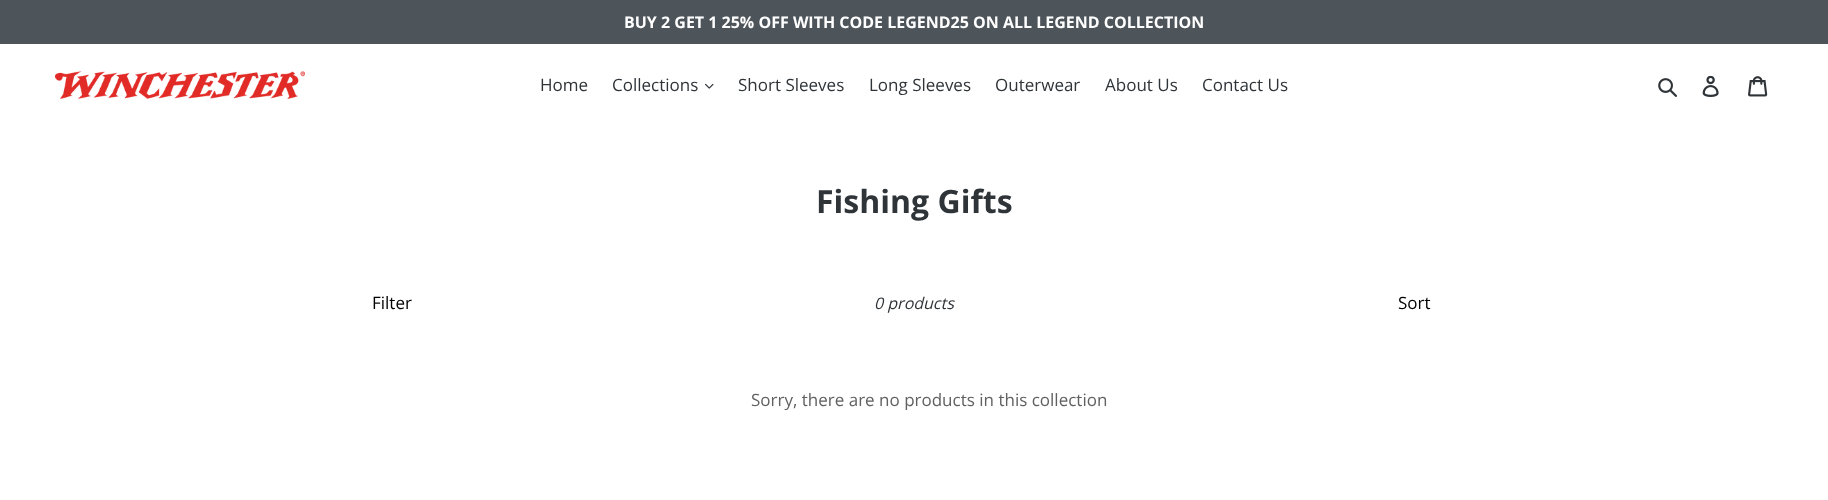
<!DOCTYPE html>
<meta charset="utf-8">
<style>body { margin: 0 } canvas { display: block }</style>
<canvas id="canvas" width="1828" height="500"></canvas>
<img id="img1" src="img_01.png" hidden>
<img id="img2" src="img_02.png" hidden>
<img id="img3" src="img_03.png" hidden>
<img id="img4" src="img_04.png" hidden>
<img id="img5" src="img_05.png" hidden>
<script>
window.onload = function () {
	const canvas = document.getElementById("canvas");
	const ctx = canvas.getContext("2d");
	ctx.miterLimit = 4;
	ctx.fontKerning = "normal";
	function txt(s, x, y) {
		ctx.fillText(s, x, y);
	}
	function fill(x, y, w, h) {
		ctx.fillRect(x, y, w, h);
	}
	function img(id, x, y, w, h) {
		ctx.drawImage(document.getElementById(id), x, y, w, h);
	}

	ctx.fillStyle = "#FFFFFF";
	fill(0, 0, 1828, 500);
	ctx.fillStyle = "#4D555B";
	fill(0, 0, 1828, 44);
	img("img1", 55, 71, 250, 28);
	img("img2", 705, 83, 9, 6);
	img("img3", 1658, 78, 19, 19);
	img("img4", 1702, 76, 17, 21);
	img("img5", 1748, 76, 20, 21);
	ctx.font = "bold 16px Open Sans";
	ctx.fillStyle = "#FFFFFF";
	txt("BUY 2 GET 1 25% OFF WITH CODE LEGEND25 ON ALL LEGEND COLLECTION", 624, 28);
	ctx.font = "17px Open Sans";
	ctx.fillStyle = "#2F3438";
	txt("Home", 540, 91);
	txt("Collections", 612, 91);
	txt("Short Sleeves", 738, 91);
	txt("Long Sleeves", 869, 91);
	txt("Outerwear", 995, 91);
	txt("About Us", 1105, 91);
	txt("Contact Us", 1202, 91);
	ctx.font = "bold 32px Open Sans";
	txt("Fishing Gifts", 816, 213);
	ctx.font = "17px Open Sans";
	ctx.fillStyle = "#000000";
	txt("Filter", 372, 309);
	ctx.font = "italic 16px Open Sans";
	ctx.fillStyle = "#2F3438";
	txt("0 products", 874, 309);
	ctx.font = "17px Open Sans";
	ctx.fillStyle = "#000000";
	txt("Sort", 1398, 309);
	ctx.fillStyle = "#616161";
	txt("Sorry, there are no products in this collection", 751, 406);
};
</script>
